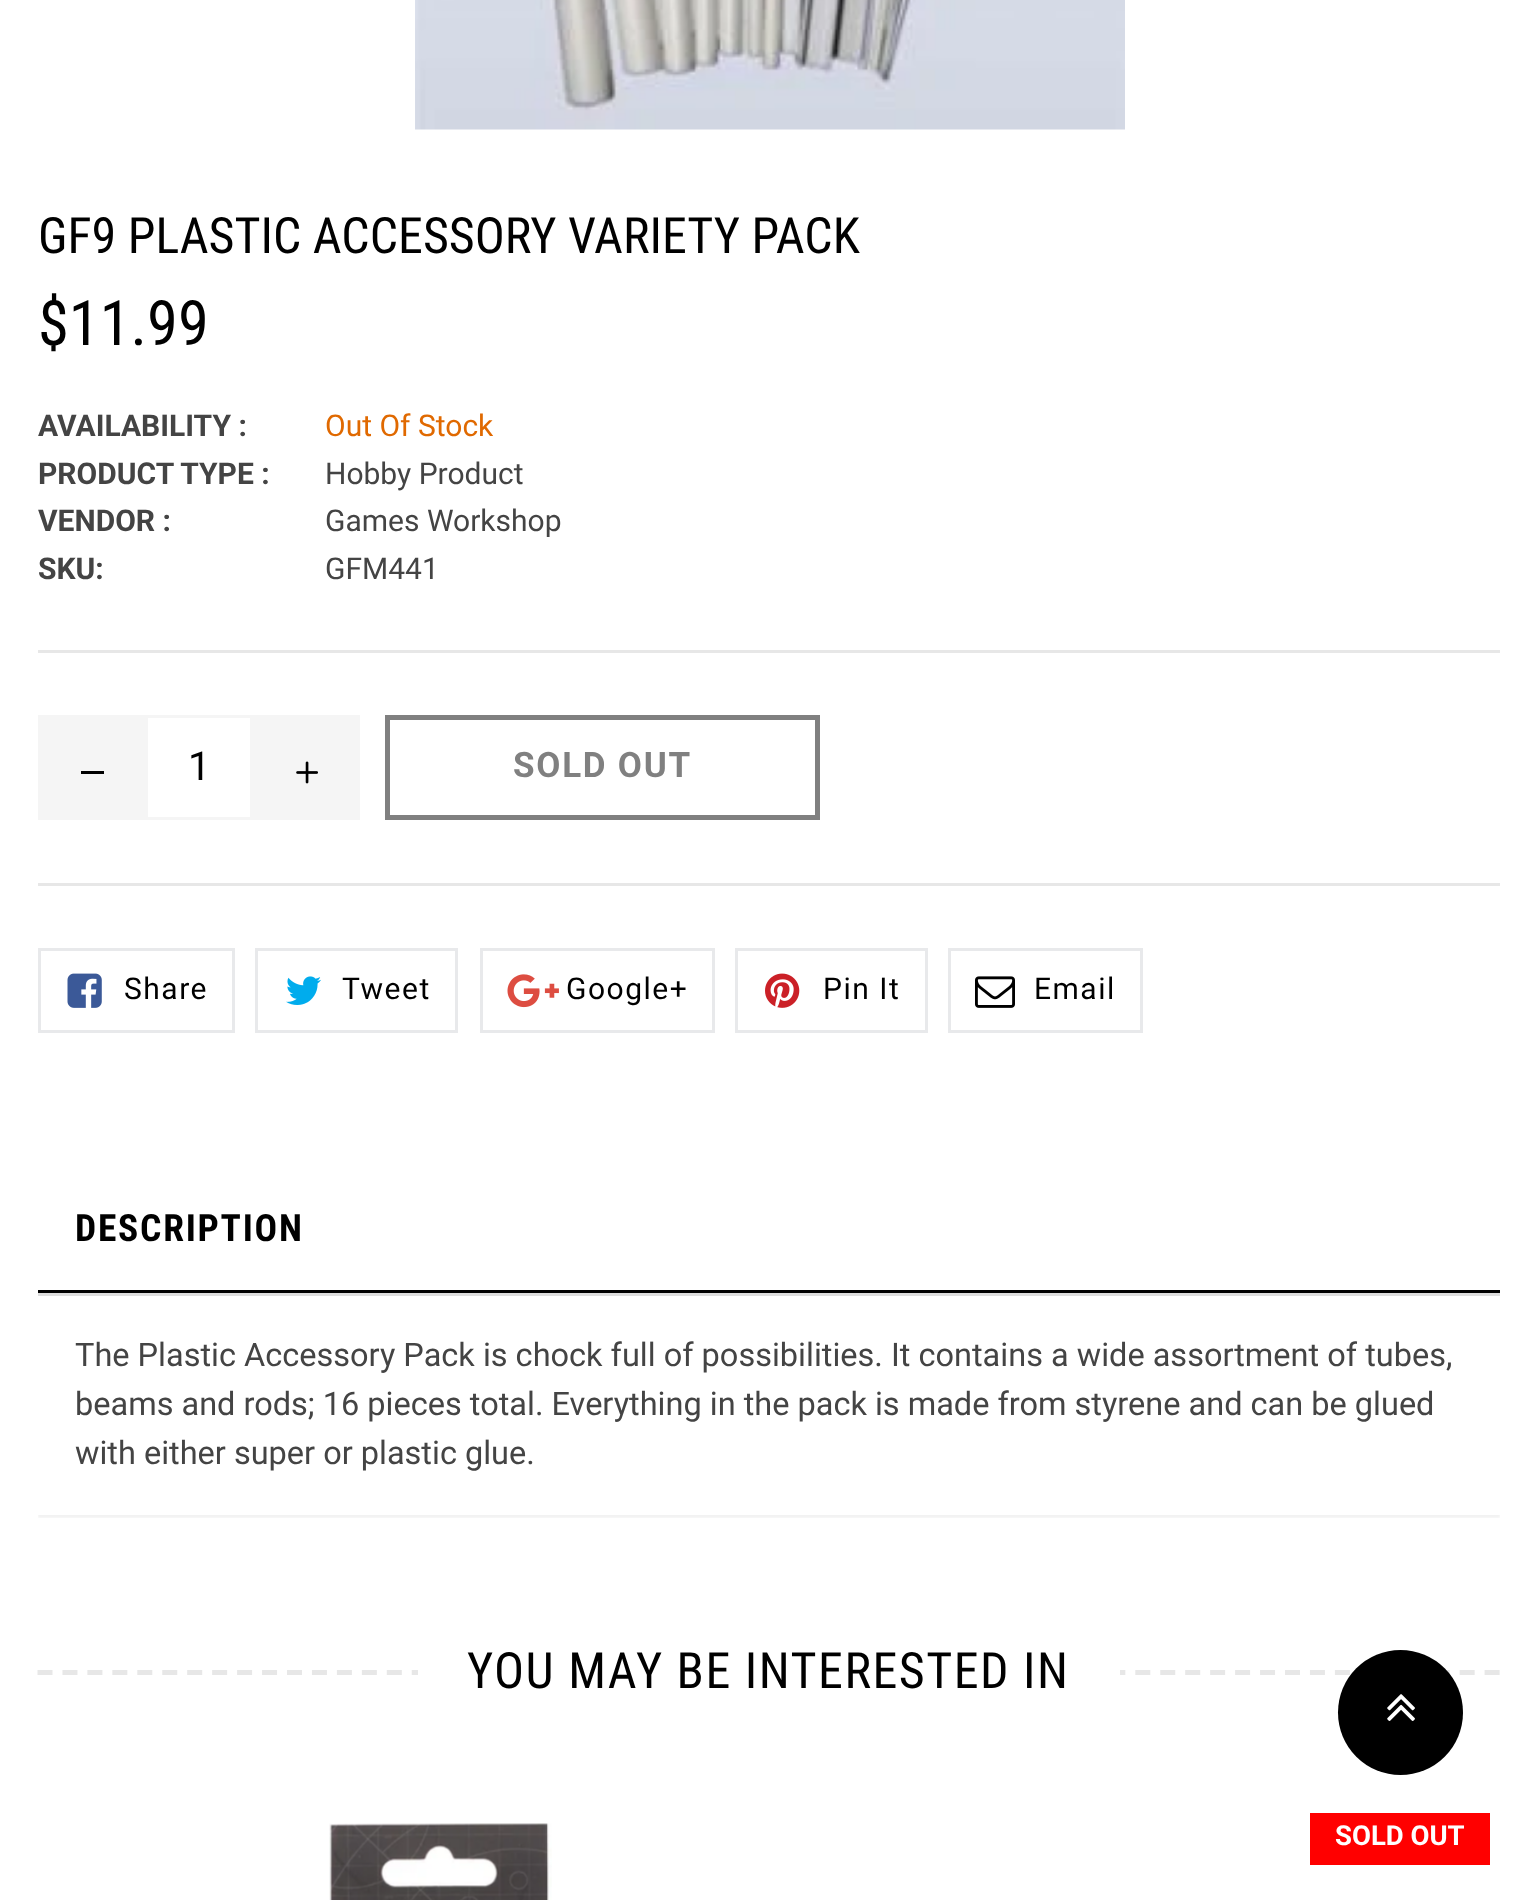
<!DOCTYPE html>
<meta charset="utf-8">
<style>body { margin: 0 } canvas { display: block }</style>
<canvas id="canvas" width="1537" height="1900"></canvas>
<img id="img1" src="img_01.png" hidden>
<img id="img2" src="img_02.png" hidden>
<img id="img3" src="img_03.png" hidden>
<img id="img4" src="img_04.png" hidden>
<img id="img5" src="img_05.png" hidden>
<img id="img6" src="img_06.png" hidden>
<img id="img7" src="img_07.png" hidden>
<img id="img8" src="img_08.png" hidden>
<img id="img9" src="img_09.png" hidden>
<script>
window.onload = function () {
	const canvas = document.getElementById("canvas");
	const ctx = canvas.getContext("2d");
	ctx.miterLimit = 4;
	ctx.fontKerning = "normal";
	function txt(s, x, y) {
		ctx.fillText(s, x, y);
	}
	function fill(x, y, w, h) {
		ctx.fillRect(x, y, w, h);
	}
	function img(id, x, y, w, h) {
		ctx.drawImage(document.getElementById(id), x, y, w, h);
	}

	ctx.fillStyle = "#FFFFFF";
	fill(0, 0, 1537, 1900);
	img("img1", 415, 0, 710, 130);
	ctx.fillStyle = "#E7E7E7";
	fill(38, 650, 1462, 3);
	ctx.fillStyle = "#F5F5F5";
	fill(38, 715, 107, 105);
	ctx.fillStyle = "#000000";
	fill(81, 771, 23, 3);
	ctx.strokeStyle = "#F5F5F5";
	ctx.lineWidth = 3;
	ctx.strokeRect(146.5, 716.5, 105, 102);
	ctx.fillStyle = "#F5F5F5";
	fill(253, 715, 107, 105);
	img("img2", 296, 761, 22, 23);
	ctx.strokeStyle = "#808080";
	ctx.lineWidth = 5;
	ctx.strokeRect(387.5, 717.5, 430, 100);
	ctx.fillStyle = "#E7E7E7";
	fill(38, 883, 1462, 3);
	ctx.strokeStyle = "#E8E9EB";
	ctx.lineWidth = 3;
	ctx.strokeRect(39.5, 949.5, 194, 82);
	img("img3", 67, 973, 35, 35);
	ctx.strokeRect(256.5, 949.5, 200, 82);
	img("img4", 286, 976, 35, 29);
	ctx.strokeRect(481.5, 949.5, 232, 82);
	img("img5", 507, 974, 52, 34);
	ctx.strokeRect(736.5, 949.5, 190, 82);
	img("img6", 765, 973, 35, 35);
	ctx.strokeRect(949.5, 949.5, 192, 82);
	img("img7", 975, 976, 40, 32);
	ctx.save();
	ctx.beginPath();
	ctx.rect(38, 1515, 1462, 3);
	ctx.clip();
	ctx.fillStyle = "rgba(0, 0, 0, 0.05)";
	ctx.filter = "blur(1px)";
	ctx.beginPath();
	ctx.rect(38, 1173, 1462, 345);
	ctx.fill();
	ctx.filter = "none";
	ctx.restore();
	ctx.fillStyle = "#000000";
	fill(38, 1290, 1462, 3);
	ctx.fillStyle = "#DDDDDD";
	fill(38, 1293, 1462, 3);
	ctx.beginPath();
	ctx.moveTo(37.5, 1672.5);
	ctx.lineTo(1500, 1672.5);
	ctx.strokeStyle = "#E7E7E7";
	ctx.lineWidth = 5;
	ctx.setLineDash([15, 9.95]);
	ctx.stroke();
	ctx.fillStyle = "#FFFFFF";
	fill(418, 1670, 702, 5);
	img("img8", 329, 1823, 223, 77);
	ctx.fillStyle = "#FF0000";
	fill(1310, 1813, 180, 52);
	ctx.fillStyle = "#000000";
	ctx.beginPath();
	ctx.arc(1400.5, 1712.5, 62.5, 0, Math.PI * 2);
	ctx.fill();
	img("img9", 1387, 1694, 28, 27);
	ctx.font = "50px Roboto Condensed";
	txt("GF9 PLASTIC ACCESSORY VARIETY PACK", 38, 253);
	ctx.font = "62.5px Roboto Condensed";
	txt("$11.99", 38, 345);
	ctx.font = "bold 30px Roboto";
	ctx.fillStyle = "#444444";
	txt("AVAILABILITY :", 38, 436);
	ctx.font = "30px Roboto";
	ctx.fillStyle = "#E06900";
	txt("Out Of Stock", 325, 436);
	ctx.font = "bold 30px Roboto";
	ctx.fillStyle = "#444444";
	txt("PRODUCT TYPE :", 38, 484);
	ctx.font = "30px Roboto";
	txt("Hobby Product", 325, 484);
	ctx.font = "bold 30px Roboto";
	txt("VENDOR :", 38, 531);
	ctx.font = "30px Roboto";
	txt("Games Workshop", 325, 531);
	ctx.font = "bold 30px Roboto";
	txt("SKU:", 38, 579);
	ctx.font = "30px Roboto";
	txt("GFM441", 325, 579);
	ctx.font = "40px Roboto";
	ctx.fillStyle = "#000000";
	txt("1", 188, 780);
	ctx.letterSpacing = "1.75px";
	ctx.font = "bold 35px Roboto";
	ctx.fillStyle = "#808080";
	txt("SOLD OUT", 513, 777);
	ctx.letterSpacing = "1.5px";
	ctx.font = "30px Roboto";
	ctx.fillStyle = "#000000";
	txt("Share", 124, 999);
	txt("Tweet", 342, 999);
	txt("Google+", 566, 999);
	txt("Pin It", 823, 999);
	txt("Email", 1034, 999);
	ctx.letterSpacing = "1.75px";
	ctx.font = "bold 37.5px Roboto Condensed";
	txt("DESCRIPTION", 75, 1241);
	ctx.letterSpacing = "0px";
	ctx.font = "32.5px Roboto";
	ctx.fillStyle = "#444444";
	txt("The Plastic Accessory Pack is chock full of possibilities. It contains a wide assortment of tubes,", 75, 1366);
	txt("beams and rods; 16 pieces total. Everything in the pack is made from styrene and can be glued", 75, 1415);
	txt("with either super or plastic glue.", 75, 1464);
	ctx.letterSpacing = "1.5px";
	ctx.font = "50px Roboto Condensed";
	ctx.fillStyle = "#000000";
	txt("YOU MAY BE INTERESTED IN", 467, 1688);
	ctx.letterSpacing = "0px";
	ctx.font = "bold 27.5px Roboto";
	ctx.fillStyle = "#FEFEFE";
	txt("SOLD OUT", 1335, 1845);
};
</script>
